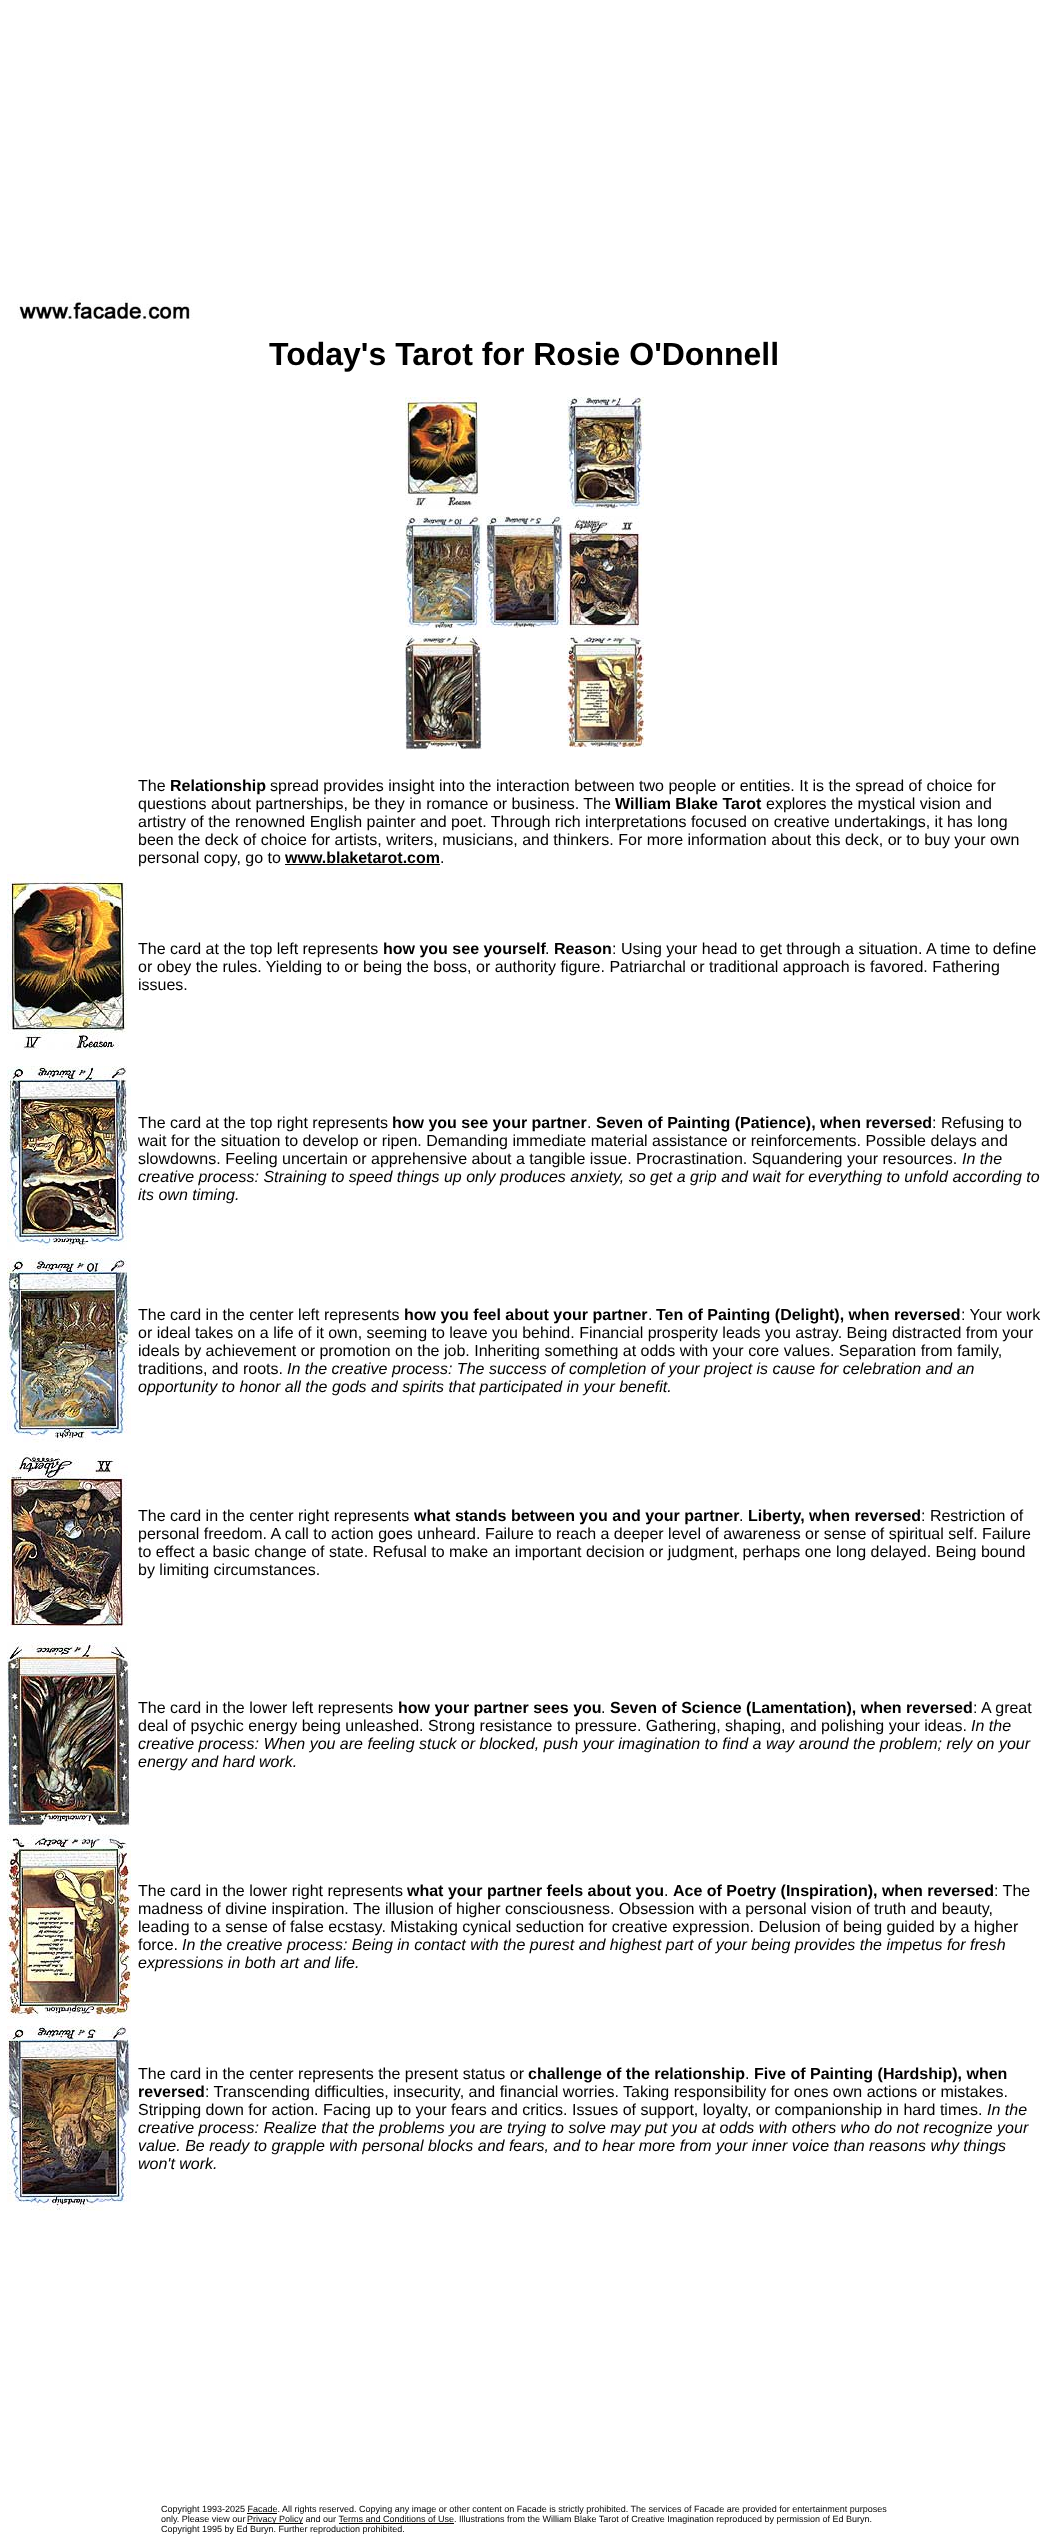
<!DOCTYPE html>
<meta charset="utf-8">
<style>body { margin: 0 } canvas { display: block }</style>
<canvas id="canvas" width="1049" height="2547"></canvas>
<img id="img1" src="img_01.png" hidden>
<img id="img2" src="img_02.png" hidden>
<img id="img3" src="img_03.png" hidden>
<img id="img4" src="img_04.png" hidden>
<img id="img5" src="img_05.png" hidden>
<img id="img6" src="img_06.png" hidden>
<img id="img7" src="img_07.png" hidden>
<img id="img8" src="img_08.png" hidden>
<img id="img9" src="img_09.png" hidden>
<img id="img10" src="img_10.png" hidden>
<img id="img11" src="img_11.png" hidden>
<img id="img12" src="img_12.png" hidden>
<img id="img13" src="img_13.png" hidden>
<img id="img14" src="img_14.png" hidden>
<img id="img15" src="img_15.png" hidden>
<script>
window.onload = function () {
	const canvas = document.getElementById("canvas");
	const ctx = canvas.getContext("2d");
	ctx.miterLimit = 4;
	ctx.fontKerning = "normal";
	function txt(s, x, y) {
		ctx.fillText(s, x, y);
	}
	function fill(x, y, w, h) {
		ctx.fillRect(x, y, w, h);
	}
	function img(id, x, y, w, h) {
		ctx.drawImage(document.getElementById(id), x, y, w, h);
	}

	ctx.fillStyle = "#FFFFFF";
	fill(0, 0, 1049, 2547);
	img("img1", 17, 296, 176, 24);
	img("img2", 405, 397, 75, 112);
	img("img3", 567, 397, 77, 112);
	img("img4", 405, 516, 77, 112);
	img("img5", 486, 516, 77, 112);
	img("img6", 567, 516, 75, 112);
	img("img7", 405, 635, 77, 115);
	img("img8", 567, 635, 77, 113);
	ctx.fillStyle = "#000000";
	fill(285, 864, 155, 1);
	img("img9", 7, 874, 121, 176);
	img("img10", 7, 1066, 124, 184);
	img("img11", 7, 1258, 124, 185);
	img("img12", 7, 1450, 121, 177);
	img("img13", 7, 1642, 124, 185);
	img("img14", 7, 1834, 124, 185);
	img("img15", 7, 2026, 124, 185);
	fill(247, 2513, 30, 1);
	fill(247, 2523, 56, 1);
	fill(339, 2523, 115, 1);
	ctx.font = "bold 32px Liberation Sans";
	txt("Today's Tarot for Rosie O'Donnell", 269, 365);
	ctx.font = "16px Liberation Sans";
	txt("The", 138, 791);
	ctx.font = "bold 16px Liberation Sans";
	txt("Relationship", 170, 791);
	ctx.font = "16px Liberation Sans";
	txt("spread provides insight into the interaction between two people or entities. It is the spread of choice for", 270, 791);
	txt("questions about partnerships, be they in romance or business. The", 138, 809);
	ctx.font = "bold 16px Liberation Sans";
	txt("William Blake Tarot", 615, 809);
	ctx.font = "16px Liberation Sans";
	txt("explores the mystical vision and", 766, 809);
	txt("artistry of the renowned English painter and poet. Through rich interpretations focused on creative undertakings, it has long", 138, 827);
	txt("been the deck of choice for artists, writers, musicians, and thinkers. For more information about this deck, or to buy your own", 138, 845);
	txt("personal copy, go to", 138, 863);
	ctx.font = "bold 16px Liberation Sans";
	txt("www.blaketarot.com", 285, 863);
	ctx.font = "16px Liberation Sans";
	txt(".", 440, 863);
	txt("The card at the top left represents", 138, 954);
	ctx.font = "bold 16px Liberation Sans";
	txt("how you see yourself", 383, 954);
	ctx.font = "16px Liberation Sans";
	txt(".", 545, 954);
	ctx.font = "bold 16px Liberation Sans";
	txt("Reason", 554, 954);
	ctx.font = "16px Liberation Sans";
	txt(": Using your head to get through a situation. A time to define", 612, 954);
	txt("or obey the rules. Yielding to or being the boss, or authority figure. Patriarchal or traditional approach is favored. Fathering", 138, 972);
	txt("issues.", 138, 990);
	txt("The card at the top right represents", 138, 1128);
	ctx.font = "bold 16px Liberation Sans";
	txt("how you see your partner", 392, 1128);
	ctx.font = "16px Liberation Sans";
	txt(".", 587, 1128);
	ctx.font = "bold 16px Liberation Sans";
	txt("Seven of Painting (Patience), when reversed", 596, 1128);
	ctx.font = "16px Liberation Sans";
	txt(": Refusing to", 932, 1128);
	txt("wait for the situation to develop or ripen. Demanding immediate material assistance or reinforcements. Possible delays and", 138, 1146);
	txt("slowdowns. Feeling uncertain or apprehensive about a tangible issue. Procrastination. Squandering your resources.", 138, 1164);
	ctx.font = "italic 16px Liberation Sans";
	txt("In the", 962, 1164);
	txt("creative process: Straining to speed things up only produces anxiety, so get a grip and wait for everything to unfold according to", 138, 1182);
	txt("its own timing.", 138, 1200);
	ctx.font = "16px Liberation Sans";
	txt("The card in the center left represents", 138, 1320);
	ctx.font = "bold 16px Liberation Sans";
	txt("how you feel about your partner", 404, 1320);
	ctx.font = "16px Liberation Sans";
	txt(".", 648, 1320);
	ctx.font = "bold 16px Liberation Sans";
	txt("Ten of Painting (Delight), when reversed", 656, 1320);
	ctx.font = "16px Liberation Sans";
	txt(": Your work", 961, 1320);
	txt("or ideal takes on a life of it own, seeming to leave you behind. Financial prosperity leads you astray. Being distracted from your", 138, 1338);
	txt("ideals by achievement or promotion on the job. Inheriting something at odds with your core values. Separation from family,", 138, 1356);
	txt("traditions, and roots.", 138, 1374);
	ctx.font = "italic 16px Liberation Sans";
	txt("In the creative process: The success of completion of your project is cause for celebration and an", 287, 1374);
	txt("opportunity to honor all the gods and spirits that participated in your benefit.", 138, 1392);
	ctx.font = "16px Liberation Sans";
	txt("The card in the center right represents", 138, 1521);
	ctx.font = "bold 16px Liberation Sans";
	txt("what stands between you and your partner", 414, 1521);
	ctx.font = "16px Liberation Sans";
	txt(".", 739, 1521);
	ctx.font = "bold 16px Liberation Sans";
	txt("Liberty, when reversed", 748, 1521);
	ctx.font = "16px Liberation Sans";
	txt(": Restriction of", 921, 1521);
	txt("personal freedom. A call to action goes unheard. Failure to reach a deeper level of awareness or sense of spiritual self. Failure", 138, 1539);
	txt("to effect a basic change of state. Refusal to make an important decision or judgment, perhaps one long delayed. Being bound", 138, 1557);
	txt("by limiting circumstances.", 138, 1575);
	txt("The card in the lower left represents", 138, 1713);
	ctx.font = "bold 16px Liberation Sans";
	txt("how your partner sees you", 398, 1713);
	ctx.font = "16px Liberation Sans";
	txt(".", 601, 1713);
	ctx.font = "bold 16px Liberation Sans";
	txt("Seven of Science (Lamentation), when reversed", 610, 1713);
	ctx.font = "16px Liberation Sans";
	txt(": A great", 973, 1713);
	txt("deal of psychic energy being unleashed. Strong resistance to pressure. Gathering, shaping, and polishing your ideas.", 138, 1731);
	ctx.font = "italic 16px Liberation Sans";
	txt("In the", 971, 1731);
	txt("creative process: When you are feeling stuck or blocked, push your imagination to find a way around the problem; rely on your", 138, 1749);
	txt("energy and hard work.", 138, 1767);
	ctx.font = "16px Liberation Sans";
	txt("The card in the lower right represents", 138, 1896);
	ctx.font = "bold 16px Liberation Sans";
	txt("what your partner feels about you", 407, 1896);
	ctx.font = "16px Liberation Sans";
	txt(".", 664, 1896);
	ctx.font = "bold 16px Liberation Sans";
	txt("Ace of Poetry (Inspiration), when reversed", 673, 1896);
	ctx.font = "16px Liberation Sans";
	txt(": The", 994, 1896);
	txt("madness of divine inspiration. The illusion of higher consciousness. Obsession with a personal vision of truth and beauty,", 138, 1914);
	txt("leading to a sense of false ecstasy. Mistaking cynical seduction for creative expression. Delusion of being guided by a higher", 138, 1932);
	txt("force.", 138, 1950);
	ctx.font = "italic 16px Liberation Sans";
	txt("In the creative process: Being in contact with the purest and highest part of your being provides the impetus for fresh", 182, 1950);
	txt("expressions in both art and life.", 138, 1968);
	ctx.font = "16px Liberation Sans";
	txt("The card in the center represents the present status or", 138, 2079);
	ctx.font = "bold 16px Liberation Sans";
	txt("challenge of the relationship", 528, 2079);
	ctx.font = "16px Liberation Sans";
	txt(".", 745, 2079);
	ctx.font = "bold 16px Liberation Sans";
	txt("Five of Painting (Hardship), when", 754, 2079);
	txt("reversed", 138, 2097);
	ctx.font = "16px Liberation Sans";
	txt(": Transcending difficulties, insecurity, and financial worries. Taking responsibility for ones own actions or mistakes.", 205, 2097);
	txt("Stripping down for action. Facing up to your fears and critics. Issues of support, loyalty, or companionship in hard times.", 138, 2115);
	ctx.font = "italic 16px Liberation Sans";
	txt("In the", 987, 2115);
	txt("creative process: Realize that the problems you are trying to solve may put you at odds with others who do not recognize your", 138, 2133);
	txt("value. Be ready to grapple with personal blocks and fears, and to hear more from your inner voice than reasons why things", 138, 2151);
	txt("won't work.", 138, 2169);
	ctx.font = "9px Liberation Sans";
	txt("Copyright 1993-2025 Facade. All rights reserved. Copying any image or other content on Facade is strictly prohibited. The services of Facade are provided for entertainment purposes", 161, 2512);
	txt("only. Please view our", 161, 2522);
	txt("Privacy Policy and our Terms and Conditions of Use. Illustrations from the William Blake Tarot of Creative Imagination reproduced by permission of Ed Buryn.", 247, 2522);
	txt("Copyright 1995 by Ed Buryn. Further reproduction prohibited.", 161, 2532);
};
</script>
